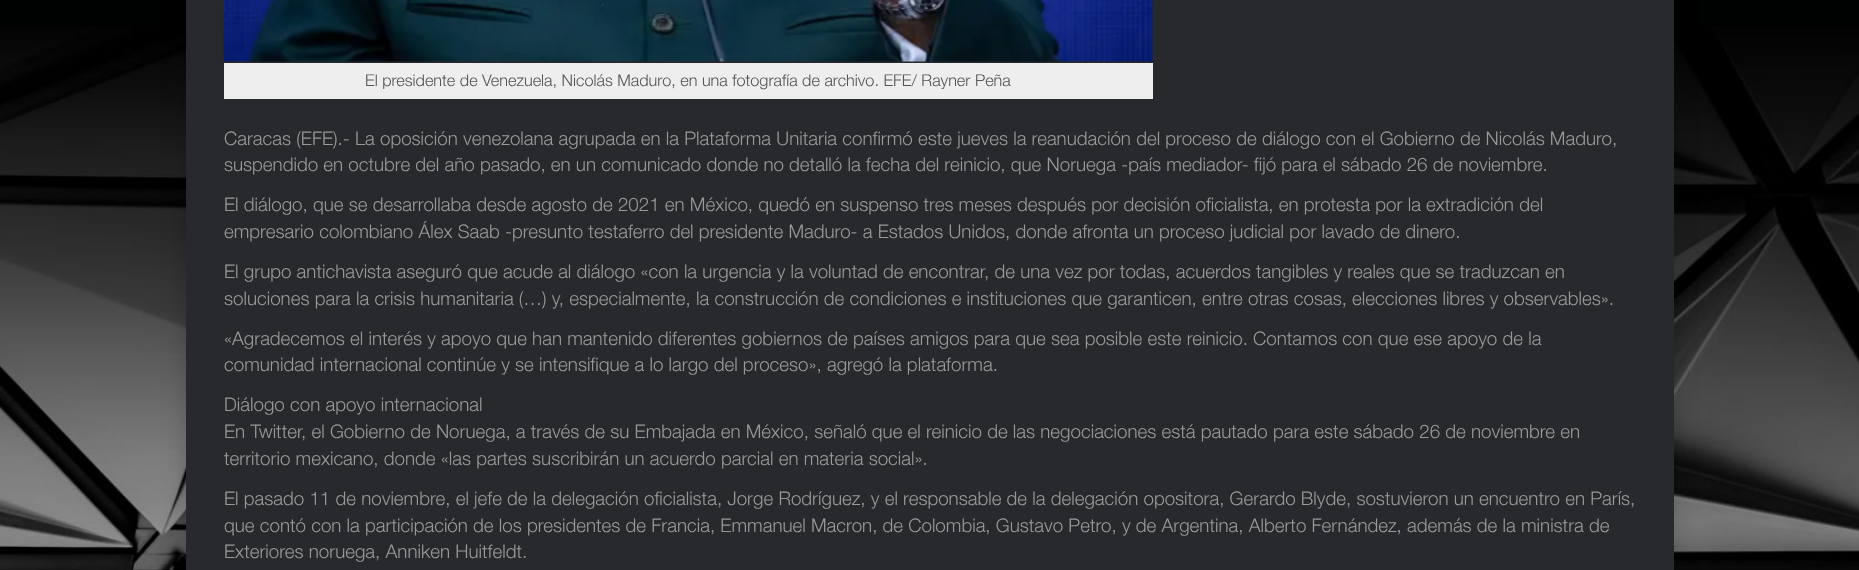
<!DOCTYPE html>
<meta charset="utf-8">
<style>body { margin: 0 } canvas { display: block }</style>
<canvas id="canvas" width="1859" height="570"></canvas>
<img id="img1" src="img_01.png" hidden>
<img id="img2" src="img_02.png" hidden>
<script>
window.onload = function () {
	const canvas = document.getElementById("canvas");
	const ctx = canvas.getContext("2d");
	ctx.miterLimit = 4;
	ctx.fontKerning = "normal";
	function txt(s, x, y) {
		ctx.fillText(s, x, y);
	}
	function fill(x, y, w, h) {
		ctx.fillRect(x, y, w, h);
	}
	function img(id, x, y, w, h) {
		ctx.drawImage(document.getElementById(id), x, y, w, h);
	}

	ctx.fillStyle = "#000101";
	fill(0, 0, 1859, 570);
	img("img1", 0, 27, 1859, 543);
	ctx.fillStyle = "rgba(0, 0, 0, 0.19)";
	ctx.filter = "blur(12.5px)";
	ctx.beginPath();
	ctx.rect(186, -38, 1488, 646);
	ctx.fill();
	ctx.filter = "none";
	ctx.fillStyle = "#27292D";
	fill(186, 0, 1488, 570);
	img("img2", 223, 0, 930, 62);
	ctx.fillStyle = "#EEEEEE";
	fill(224, 63, 929, 36);
	ctx.font = "300 16.25px 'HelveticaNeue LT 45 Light'";
	ctx.fillStyle = "#555555";
	txt("El presidente de Venezuela, Nicolás Maduro, en una fotografía de archivo. EFE/ Rayner Peña", 365, 86);
	ctx.font = "300 18.75px 'HelveticaNeue LT 45 Light'";
	ctx.fillStyle = "#999999";
	txt("Caracas (EFE).- La oposición venezolana agrupada en la Plataforma Unitaria confirmó este jueves la reanudación del proceso de diálogo con el Gobierno de Nicolás Maduro,", 224, 145);
	txt("suspendido en octubre del año pasado, en un comunicado donde no detalló la fecha del reinicio, que Noruega -país mediador- fijó para el sábado 26 de noviembre.", 224, 171);
	txt("El diálogo, que se desarrollaba desde agosto de 2021 en México, quedó en suspenso tres meses después por decisión oficialista, en protesta por la extradición del", 224, 211);
	txt("empresario colombiano Álex Saab -presunto testaferro del presidente Maduro- a Estados Unidos, donde afronta un proceso judicial por lavado de dinero.", 224, 238);
	txt("El grupo antichavista aseguró que acude al diálogo «con la urgencia y la voluntad de encontrar, de una vez por todas, acuerdos tangibles y reales que se traduzcan en", 224, 278);
	txt("soluciones para la crisis humanitaria (…) y, especialmente, la construcción de condiciones e instituciones que garanticen, entre otras cosas, elecciones libres y observables».", 224, 305);
	txt("«Agradecemos el interés y apoyo que han mantenido diferentes gobiernos de países amigos para que sea posible este reinicio. Contamos con que ese apoyo de la", 224, 345);
	txt("comunidad internacional continúe y se intensifique a lo largo del proceso», agregó la plataforma.", 224, 371);
	txt("Diálogo con apoyo internacional", 224, 411);
	txt("En Twitter, el Gobierno de Noruega, a través de su Embajada en México, señaló que el reinicio de las negociaciones está pautado para este sábado 26 de noviembre en", 224, 438);
	txt("territorio mexicano, donde «las partes suscribirán un acuerdo parcial en materia social».", 224, 465);
	txt("El pasado 11 de noviembre, el jefe de la delegación oficialista, Jorge Rodríguez, y el responsable de la delegación opositora, Gerardo Blyde, sostuvieron un encuentro en París,", 224, 505);
	txt("que contó con la participación de los presidentes de Francia, Emmanuel Macron, de Colombia, Gustavo Petro, y de Argentina, Alberto Fernández, además de la ministra de", 224, 532);
	txt("Exteriores noruega, Anniken Huitfeldt.", 224, 558);
};
</script>
